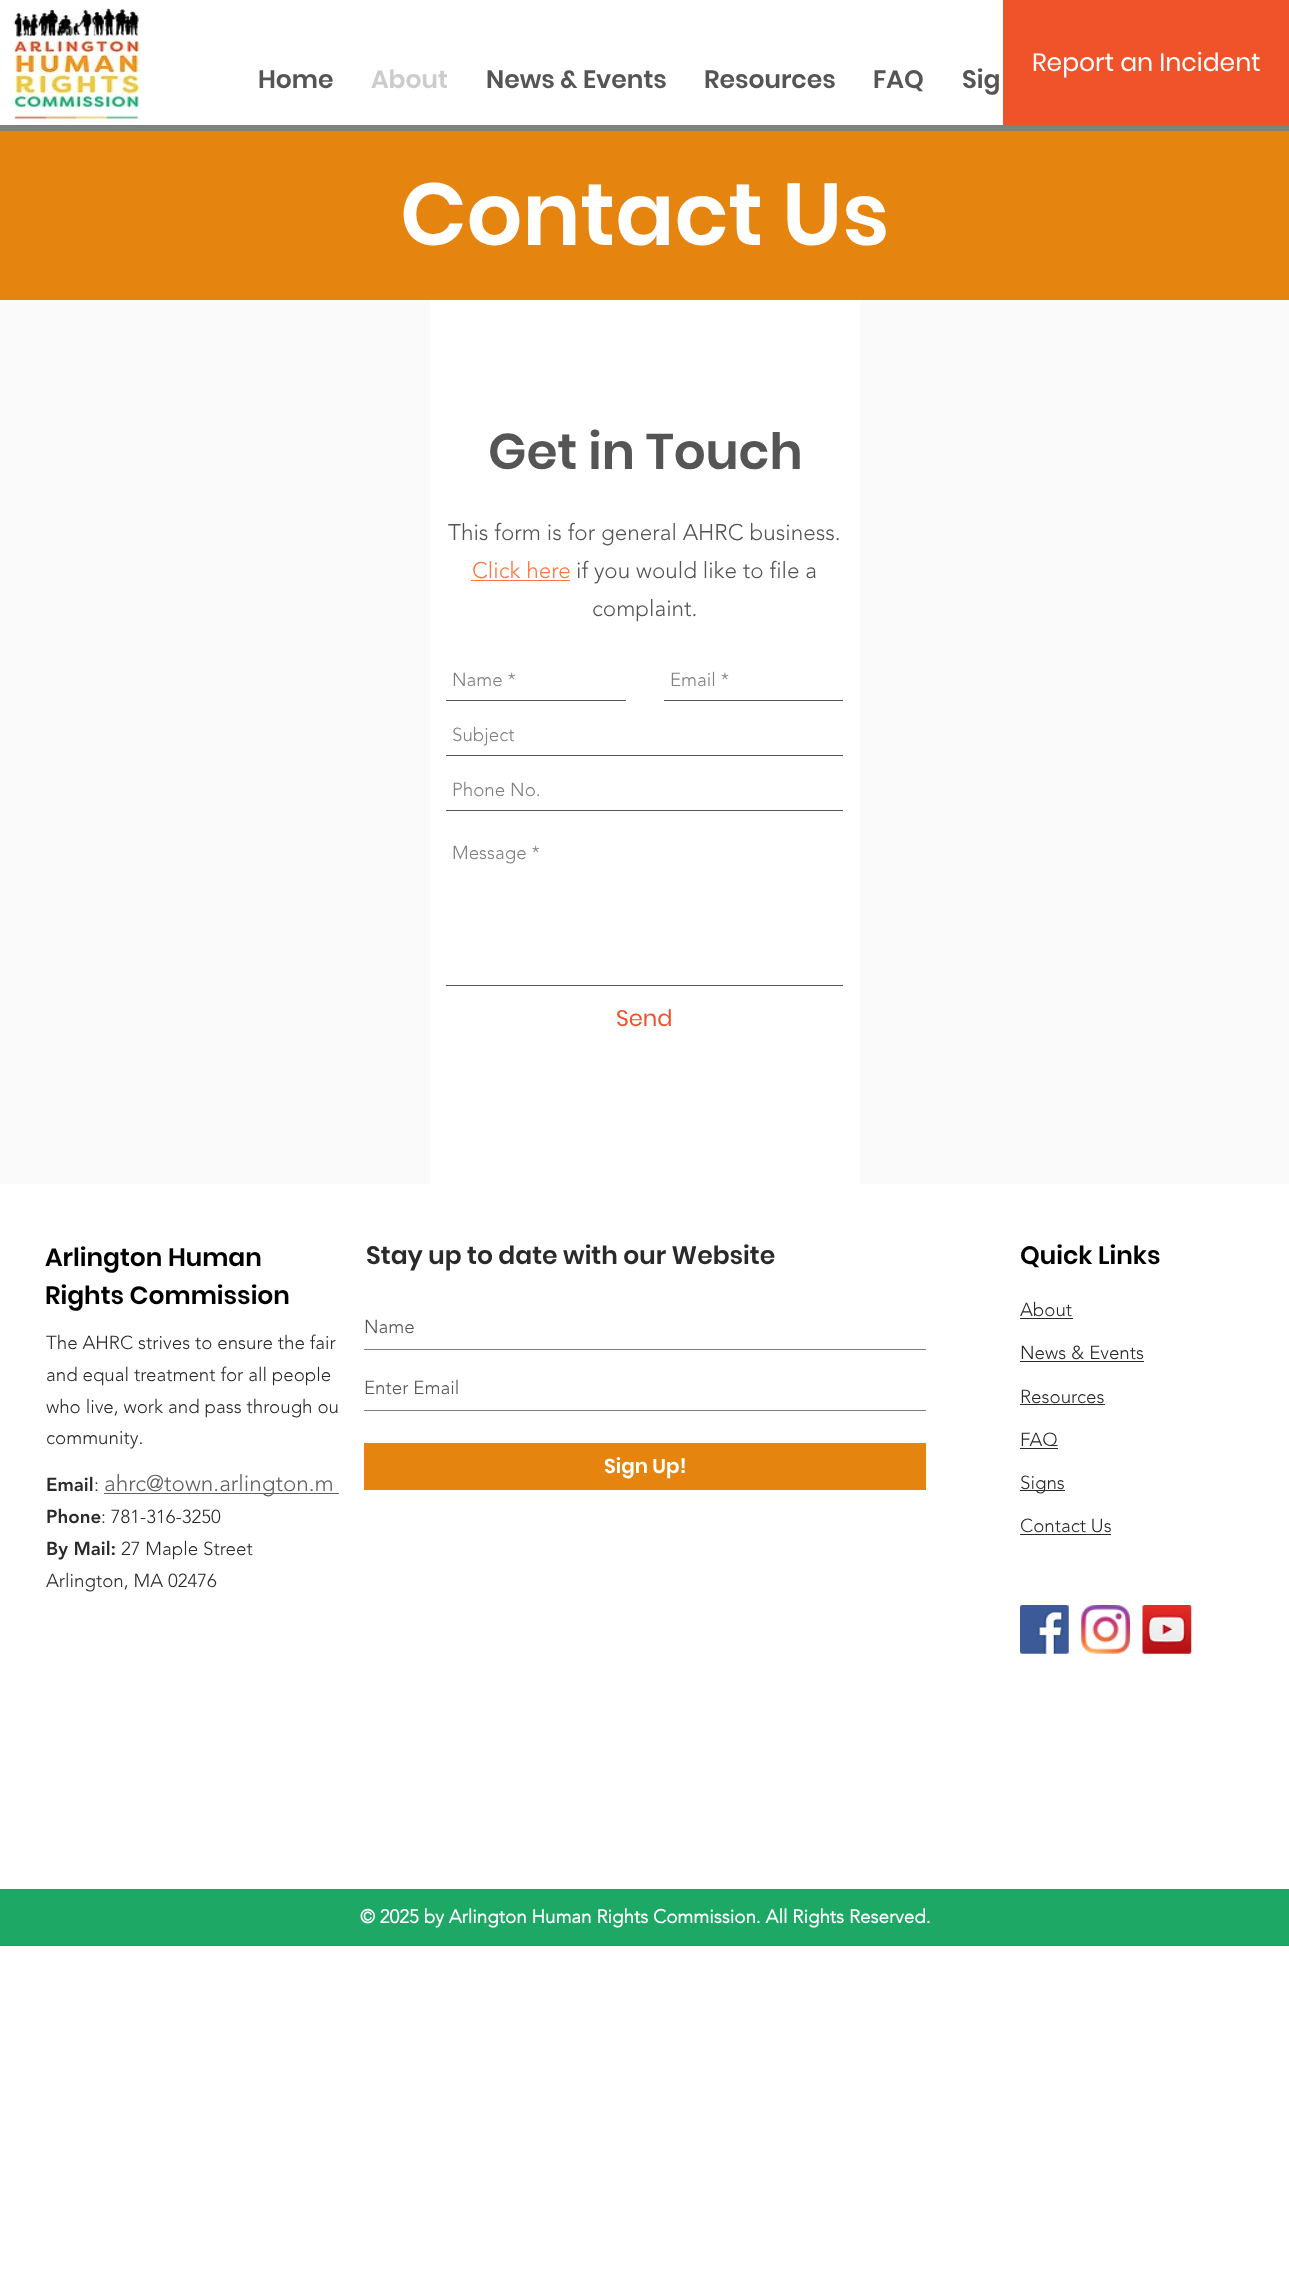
<!DOCTYPE html>
<meta charset="utf-8">
<style>body { margin: 0 } canvas { display: block }</style>
<canvas id="canvas" width="1289" height="2271"></canvas>
<img id="img1" src="img_01.png" hidden>
<img id="img2" src="img_02.png" hidden>
<img id="img3" src="img_03.png" hidden>
<img id="img4" src="img_04.png" hidden>
<script>
window.onload = function () {
	const canvas = document.getElementById("canvas");
	const ctx = canvas.getContext("2d");
	ctx.miterLimit = 4;
	ctx.fontKerning = "normal";
	function txt(s, x, y) {
		ctx.fillText(s, x, y);
	}
	function fill(x, y, w, h) {
		ctx.fillRect(x, y, w, h);
	}
	function img(id, x, y, w, h) {
		ctx.drawImage(document.getElementById(id), x, y, w, h);
	}

	ctx.fillStyle = "#FFFFFF";
	fill(0, 0, 1289, 2271);
	img("img1", 10, 8, 131, 114);
	ctx.fillStyle = "#F05229";
	fill(1003, 0, 286, 125);
	ctx.fillStyle = "#808080";
	fill(0, 125, 1289, 6);
	ctx.fillStyle = "#E68410";
	fill(0, 131, 1289, 169);
	ctx.fillStyle = "#FAFAFA";
	fill(0, 300, 430, 884);
	ctx.fillStyle = "#FD763F";
	fill(471, 580, 99, 1);
	ctx.fillStyle = "#555555";
	fill(446, 700, 180, 1);
	fill(664, 700, 179, 1);
	fill(446, 755, 397, 1);
	fill(446, 810, 397, 1);
	fill(446, 985, 397, 1);
	ctx.fillStyle = "#FAFAFA";
	fill(860, 300, 429, 884);
	ctx.fillStyle = "#606060";
	fill(104, 1493, 235, 1);
	ctx.fillStyle = "#808080";
	fill(364, 1349, 562, 1);
	fill(364, 1410, 562, 1);
	ctx.fillStyle = "#E68410";
	fill(364, 1443, 562, 47);
	ctx.fillStyle = "#2A2A2A";
	fill(1020, 1318, 53, 1);
	fill(1020, 1361, 124, 1);
	fill(1020, 1404, 85, 1);
	fill(1020, 1448, 38, 1);
	fill(1020, 1490, 45, 1);
	fill(1020, 1534, 91, 1);
	img("img2", 1020, 1605, 49, 49);
	img("img3", 1081, 1605, 49, 49);
	img("img4", 1142, 1605, 50, 49);
	ctx.fillStyle = "#1DA865";
	fill(0, 1889, 1289, 57);
	ctx.font = "25px Poppins";
	ctx.fillStyle = "#FFFFFF";
	txt("Report an Incident", 1032, 71);
	ctx.font = "600 25px Poppins";
	ctx.fillStyle = "#555555";
	txt("Home", 258, 88);
	ctx.fillStyle = "#CCCCCC";
	txt("About", 371, 88);
	ctx.fillStyle = "#555555";
	txt("News & Events", 486, 88);
	txt("Resources", 704, 88);
	txt("FAQ", 873, 88);
	txt("Sig", 962, 88);
	ctx.font = "600 87.5px Poppins";
	ctx.fillStyle = "#FFFFFF";
	txt("Contact Us", 400, 245);
	ctx.font = "600 50px Poppins";
	ctx.fillStyle = "#555555";
	txt("Get in Touch", 488, 469);
	ctx.font = "300 22.5px 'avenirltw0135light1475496'";
	txt("This form is for general AHRC business.", 448, 540);
	ctx.fillStyle = "#FD763F";
	txt("Click here", 472, 578);
	ctx.fillStyle = "#555555";
	txt("if you would like to file a", 576, 578);
	txt("complaint.", 592, 616);
	ctx.font = "300 18.75px 'avenirltw0135light1475496'";
	ctx.fillStyle = "#808080";
	txt("Name *", 452, 686);
	txt("Email *", 670, 686);
	txt("Subject", 452, 741);
	txt("Phone No.", 452, 796);
	txt("Message *", 452, 859);
	ctx.font = "22.5px Poppins";
	ctx.fillStyle = "#F05229";
	txt("Send", 616, 1026);
	ctx.font = "600 25px Poppins";
	ctx.fillStyle = "#000000";
	txt("Arlington Human", 45, 1266);
	txt("Rights Commission", 45, 1304);
	ctx.font = "300 18.75px 'avenirltw0135light1475496'";
	ctx.fillStyle = "#2A2A2A";
	txt("The AHRC strives to ensure the fair", 46, 1349);
	txt("and equal treatment for all people", 46, 1381);
	txt("who live, work and pass through ou", 46, 1413);
	txt("community.", 46, 1444);
	ctx.font = "900 18.75px 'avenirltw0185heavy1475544'";
	txt("Email", 46, 1491);
	ctx.font = "300 18.75px 'avenirltw0135light1475496'";
	txt(":", 94, 1491);
	ctx.font = "300 22.5px 'avenirltw0135light1475496'";
	ctx.fillStyle = "#606060";
	txt("ahrc@town.arlington.m", 104, 1491);
	ctx.font = "900 18.75px 'avenirltw0185heavy1475544'";
	ctx.fillStyle = "#2A2A2A";
	txt("Phone", 46, 1523);
	ctx.font = "300 18.75px 'avenirltw0135light1475496'";
	txt(": 781-316-3250", 101, 1523);
	ctx.font = "900 18.75px 'avenirltw0185heavy1475544'";
	txt("By Mail:", 46, 1555);
	ctx.font = "300 18.75px 'avenirltw0135light1475496'";
	txt("27 Maple Street", 121, 1555);
	txt("Arlington, MA 02476", 46, 1587);
	ctx.font = "600 25px Poppins";
	txt("Stay up to date with our Website", 366, 1264);
	ctx.font = "300 18.75px 'avenirltw0135light1475496'";
	ctx.fillStyle = "#555555";
	txt("Name", 364, 1333);
	txt("Enter Email", 364, 1394);
	ctx.font = "600 20px Poppins";
	ctx.fillStyle = "#FFFFFF";
	txt("Sign Up!", 604, 1473);
	ctx.font = "600 25px Poppins";
	ctx.fillStyle = "#000000";
	txt("Quick Links", 1020, 1264);
	ctx.font = "300 18.75px 'avenirltw0135light1475496'";
	ctx.fillStyle = "#2A2A2A";
	txt("About", 1020, 1316);
	txt("News & Events", 1020, 1359);
	txt("Resources", 1020, 1403);
	txt("FAQ", 1020, 1446);
	txt("Signs", 1020, 1489);
	txt("Contact Us", 1020, 1532);
	ctx.font = "bold 18.75px 'avenirltw0135light1475496'";
	ctx.fillStyle = "#FFFFFF";
	txt("© 2025 by Arlington Human Rights Commission. All Rights Reserved.", 360, 1923);
};
</script>
